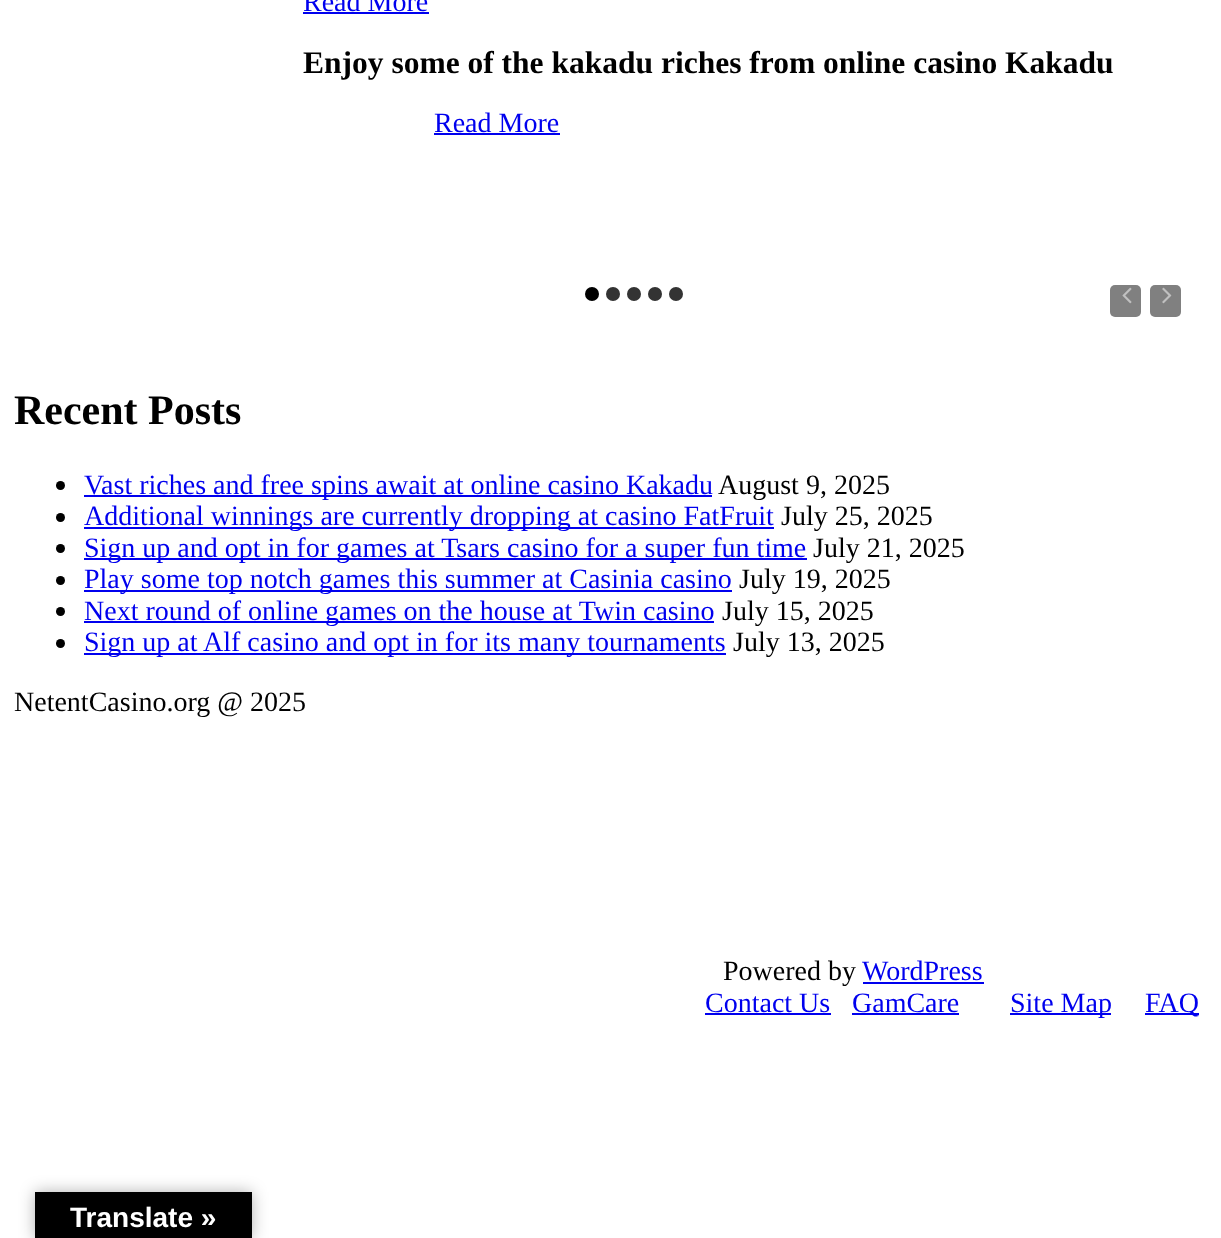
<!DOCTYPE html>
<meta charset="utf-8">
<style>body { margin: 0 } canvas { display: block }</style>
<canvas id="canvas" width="1221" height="1238"></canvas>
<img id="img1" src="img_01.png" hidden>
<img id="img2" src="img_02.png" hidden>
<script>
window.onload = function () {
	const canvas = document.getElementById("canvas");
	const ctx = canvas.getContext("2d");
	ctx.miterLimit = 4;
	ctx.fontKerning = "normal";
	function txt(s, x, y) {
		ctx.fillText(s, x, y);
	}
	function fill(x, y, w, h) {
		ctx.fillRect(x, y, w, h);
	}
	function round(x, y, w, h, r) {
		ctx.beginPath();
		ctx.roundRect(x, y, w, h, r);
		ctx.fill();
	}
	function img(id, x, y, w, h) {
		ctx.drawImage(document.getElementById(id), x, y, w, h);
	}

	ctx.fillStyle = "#FFFFFF";
	fill(0, 0, 1221, 1238);
	ctx.fillStyle = "#0000EE";
	fill(303, 12, 126, 2);
	fill(434, 133, 126, 2);
	ctx.fillStyle = "#000000";
	ctx.beginPath();
	ctx.arc(592, 294, 7, 0, Math.PI * 2);
	ctx.fill();
	ctx.fillStyle = "#333333";
	ctx.beginPath();
	ctx.arc(613, 294, 7, 0, Math.PI * 2);
	ctx.fill();
	ctx.beginPath();
	ctx.arc(634, 294, 7, 0, Math.PI * 2);
	ctx.fill();
	ctx.beginPath();
	ctx.arc(655, 294, 7, 0, Math.PI * 2);
	ctx.fill();
	ctx.beginPath();
	ctx.arc(676, 294, 7, 0, Math.PI * 2);
	ctx.fill();
	ctx.fillStyle = "#808080";
	round(1110, 285, 31, 32, 5);
	img("img1", 1122, 287, 10, 17);
	round(1150, 285, 31, 32, 5);
	img("img2", 1162, 287, 10, 17);
	ctx.fillStyle = "#000000";
	ctx.beginPath();
	ctx.arc(60.5, 485.5, 4.5, 0, Math.PI * 2);
	ctx.fill();
	ctx.fillStyle = "#0000EE";
	fill(84, 495, 628, 2);
	ctx.fillStyle = "#000000";
	ctx.beginPath();
	ctx.arc(60.5, 517.5, 4.5, 0, Math.PI * 2);
	ctx.fill();
	ctx.fillStyle = "#0000EE";
	fill(84, 527, 690, 2);
	ctx.fillStyle = "#000000";
	ctx.beginPath();
	ctx.arc(60.5, 548.5, 4.5, 0, Math.PI * 2);
	ctx.fill();
	ctx.fillStyle = "#0000EE";
	fill(84, 558, 723, 2);
	ctx.fillStyle = "#000000";
	ctx.beginPath();
	ctx.arc(60.5, 580.5, 4.5, 0, Math.PI * 2);
	ctx.fill();
	ctx.fillStyle = "#0000EE";
	fill(84, 590, 648, 2);
	ctx.fillStyle = "#000000";
	ctx.beginPath();
	ctx.arc(60.5, 611.5, 4.5, 0, Math.PI * 2);
	ctx.fill();
	ctx.fillStyle = "#0000EE";
	fill(84, 621, 630, 2);
	ctx.fillStyle = "#000000";
	ctx.beginPath();
	ctx.arc(60.5, 643.5, 4.5, 0, Math.PI * 2);
	ctx.fill();
	ctx.fillStyle = "#0000EE";
	fill(84, 653, 642, 2);
	fill(863, 982, 121, 2);
	fill(705, 1013, 126, 2);
	fill(852, 1013, 107, 2);
	fill(1010, 1013, 101, 2);
	fill(1145, 1013, 54, 2);
	ctx.fillStyle = "rgba(0, 0, 0, 0.3)";
	ctx.filter = "blur(8px)";
	ctx.beginPath();
	ctx.rect(35, 1192, 217, 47);
	ctx.fill();
	ctx.filter = "none";
	ctx.fillStyle = "#000000";
	fill(35, 1192, 217, 46);
	ctx.font = "28px Liberation Serif";
	ctx.fillStyle = "#0000EE";
	txt("Read More", 303, 11);
	ctx.font = "bold 31.5px Liberation Serif";
	ctx.fillStyle = "#000000";
	txt("Enjoy some of the kakadu riches from online casino Kakadu", 303, 73);
	ctx.font = "28px Liberation Serif";
	ctx.fillStyle = "#0000EE";
	txt("Read More", 434, 132);
	ctx.font = "bold 42px Liberation Serif";
	ctx.fillStyle = "#000000";
	txt("Recent Posts", 14, 424);
	ctx.font = "28px Liberation Serif";
	ctx.fillStyle = "#0000EE";
	txt("Vast riches and free spins await at online casino Kakadu", 84, 494);
	ctx.fillStyle = "#000000";
	txt("August 9, 2025", 718, 494);
	ctx.fillStyle = "#0000EE";
	txt("Additional winnings are currently dropping at casino FatFruit", 84, 525);
	ctx.fillStyle = "#000000";
	txt("July 25, 2025", 781, 525);
	ctx.fillStyle = "#0000EE";
	txt("Sign up and opt in for games at Tsars casino for a super fun time", 84, 557);
	ctx.fillStyle = "#000000";
	txt("July 21, 2025", 813, 557);
	ctx.fillStyle = "#0000EE";
	txt("Play some top notch games this summer at Casinia casino", 84, 588);
	ctx.fillStyle = "#000000";
	txt("July 19, 2025", 739, 588);
	ctx.fillStyle = "#0000EE";
	txt("Next round of online games on the house at Twin casino", 84, 620);
	ctx.fillStyle = "#000000";
	txt("July 15, 2025", 722, 620);
	ctx.fillStyle = "#0000EE";
	txt("Sign up at Alf casino and opt in for its many tournaments", 84, 651);
	ctx.fillStyle = "#000000";
	txt("July 13, 2025", 733, 651);
	txt("NetentCasino.org @ 2025", 14, 711);
	txt("Powered by", 723, 980);
	ctx.fillStyle = "#0000EE";
	txt("WordPress", 862, 980);
	txt("Contact Us", 705, 1012);
	txt("GamCare", 852, 1012);
	txt("Site Map", 1010, 1012);
	txt("FAQ", 1145, 1012);
	ctx.font = "bold 28px Liberation Sans";
	ctx.fillStyle = "#FFFFFF";
	txt("Translate »", 70, 1227);
};
</script>
